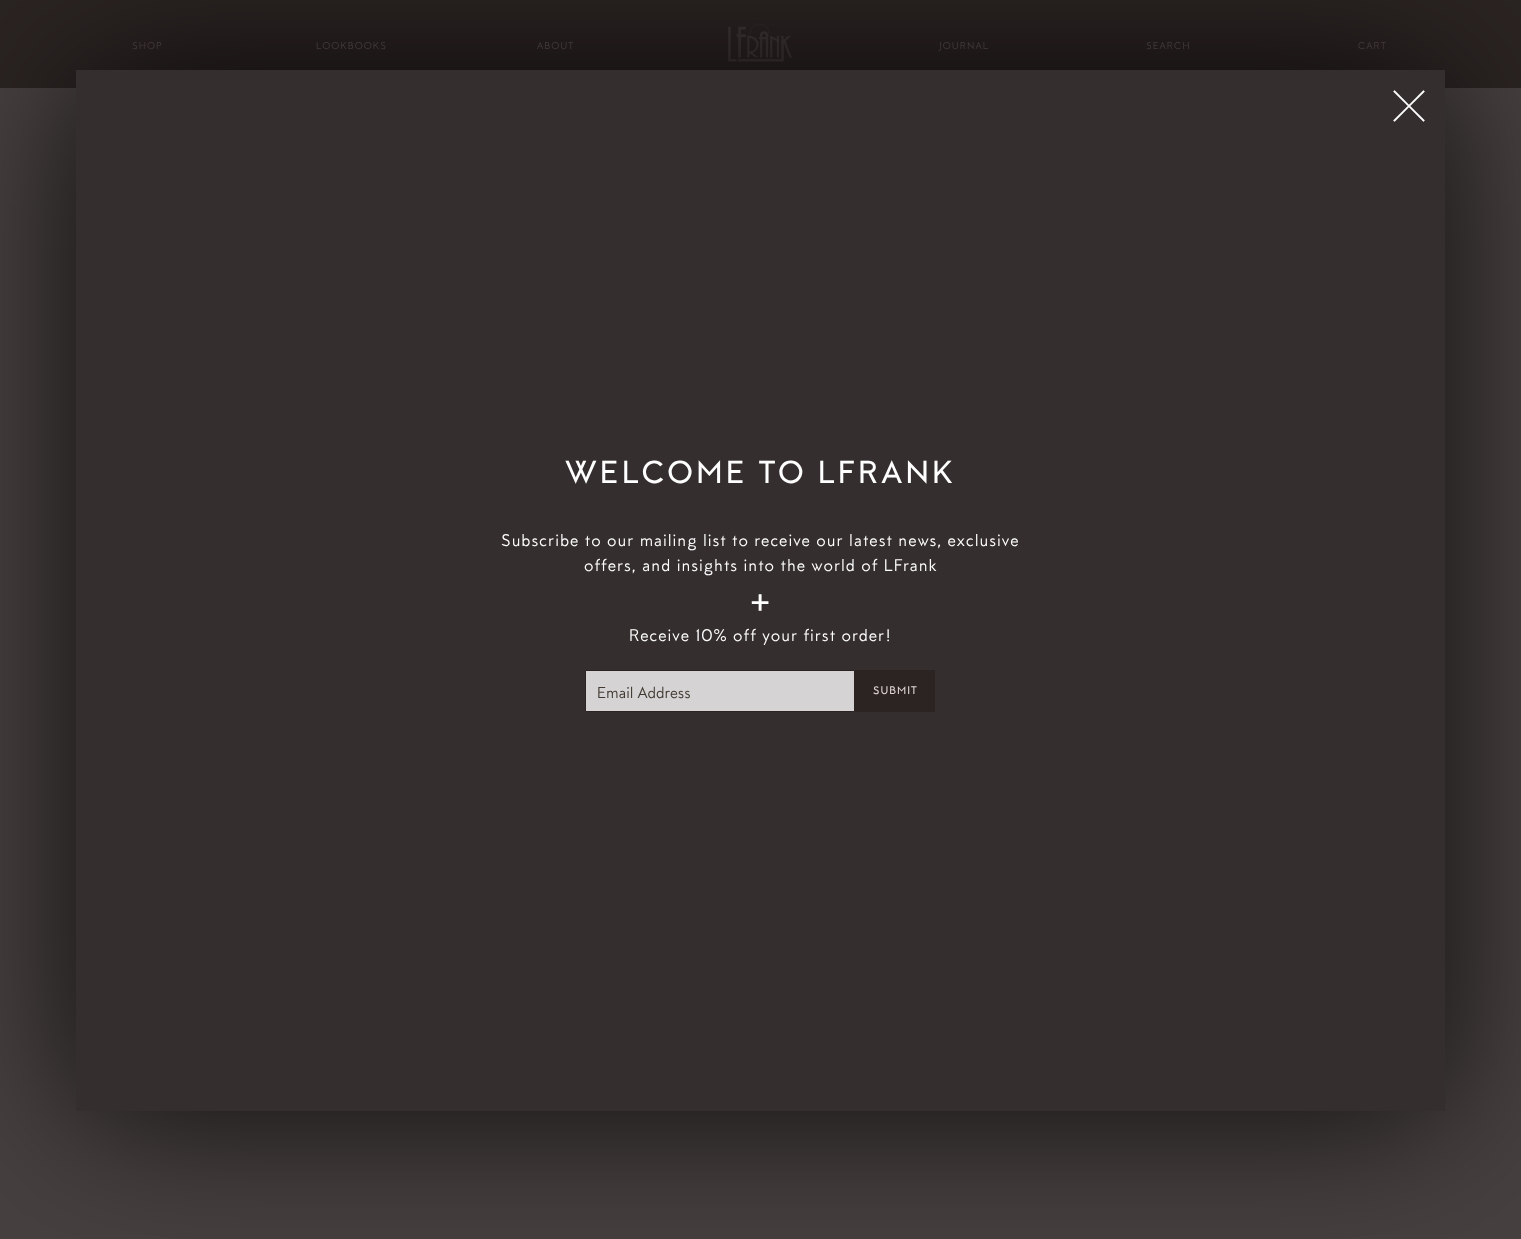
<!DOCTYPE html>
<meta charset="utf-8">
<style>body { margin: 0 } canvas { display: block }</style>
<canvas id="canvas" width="1521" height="1239"></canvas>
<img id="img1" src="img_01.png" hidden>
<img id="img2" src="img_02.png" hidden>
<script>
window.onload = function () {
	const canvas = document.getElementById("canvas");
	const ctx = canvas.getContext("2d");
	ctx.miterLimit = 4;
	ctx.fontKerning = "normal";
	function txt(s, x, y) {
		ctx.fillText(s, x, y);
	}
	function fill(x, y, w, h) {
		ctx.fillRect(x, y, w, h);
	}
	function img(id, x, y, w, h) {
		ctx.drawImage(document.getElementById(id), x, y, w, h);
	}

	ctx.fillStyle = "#474040";
	fill(0, 0, 1521, 1239);
	ctx.fillStyle = "#2B2423";
	fill(0, 0, 1521, 88);
	img("img1", 728, 23, 64, 39);
	ctx.fillStyle = "rgba(0, 0, 0, 0.79)";
	ctx.filter = "blur(77.5px)";
	ctx.beginPath();
	ctx.rect(77, 75, 1367, 1039);
	ctx.fill();
	ctx.filter = "none";
	ctx.fillStyle = "#352E2E";
	fill(76, 70, 1369, 1041);
	img("img2", 1393, 90, 32, 32);
	ctx.fillStyle = "#D5D3D3";
	ctx.beginPath();
	ctx.rect(585.5, 670.5, 269, 41);
	ctx.fill();
	ctx.strokeStyle = "#2B2423";
	ctx.stroke();
	ctx.fillStyle = "#2B2423";
	fill(855, 670, 80, 42);
	ctx.letterSpacing = "1px";
	ctx.font = "10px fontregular";
	ctx.fillStyle = "#433B3A";
	txt("SHOP", 132, 49);
	txt("LOOKBOOKS", 316, 49);
	txt("ABOUT", 537, 49);
	txt("JOURNAL", 939, 49);
	txt("SEARCH", 1146, 49);
	txt("CART", 1358, 49);
	ctx.letterSpacing = "3px";
	ctx.font = "500 32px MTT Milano";
	ctx.fillStyle = "#FFFFFF";
	txt("WELCOME TO LFRANK", 565, 483);
	ctx.letterSpacing = "1px";
	ctx.font = "17px fontregular";
	txt("Subscribe to our mailing list to receive our latest news, exclusive", 501, 546);
	txt("offers, and insights into the world of LFrank", 584, 571);
	ctx.font = "40px fontregular";
	txt("+", 749, 613);
	ctx.font = "17px fontregular";
	txt("Receive 10% off your first order!", 629, 641);
	ctx.letterSpacing = "0px";
	ctx.font = "16px fontregular";
	ctx.fillStyle = "#423A32";
	txt("Email Address", 597, 698);
	ctx.letterSpacing = "1px";
	ctx.font = "500 11px MTT Milano";
	ctx.fillStyle = "#E1D6D3";
	txt("SUBMIT", 873, 694);
};
</script>
